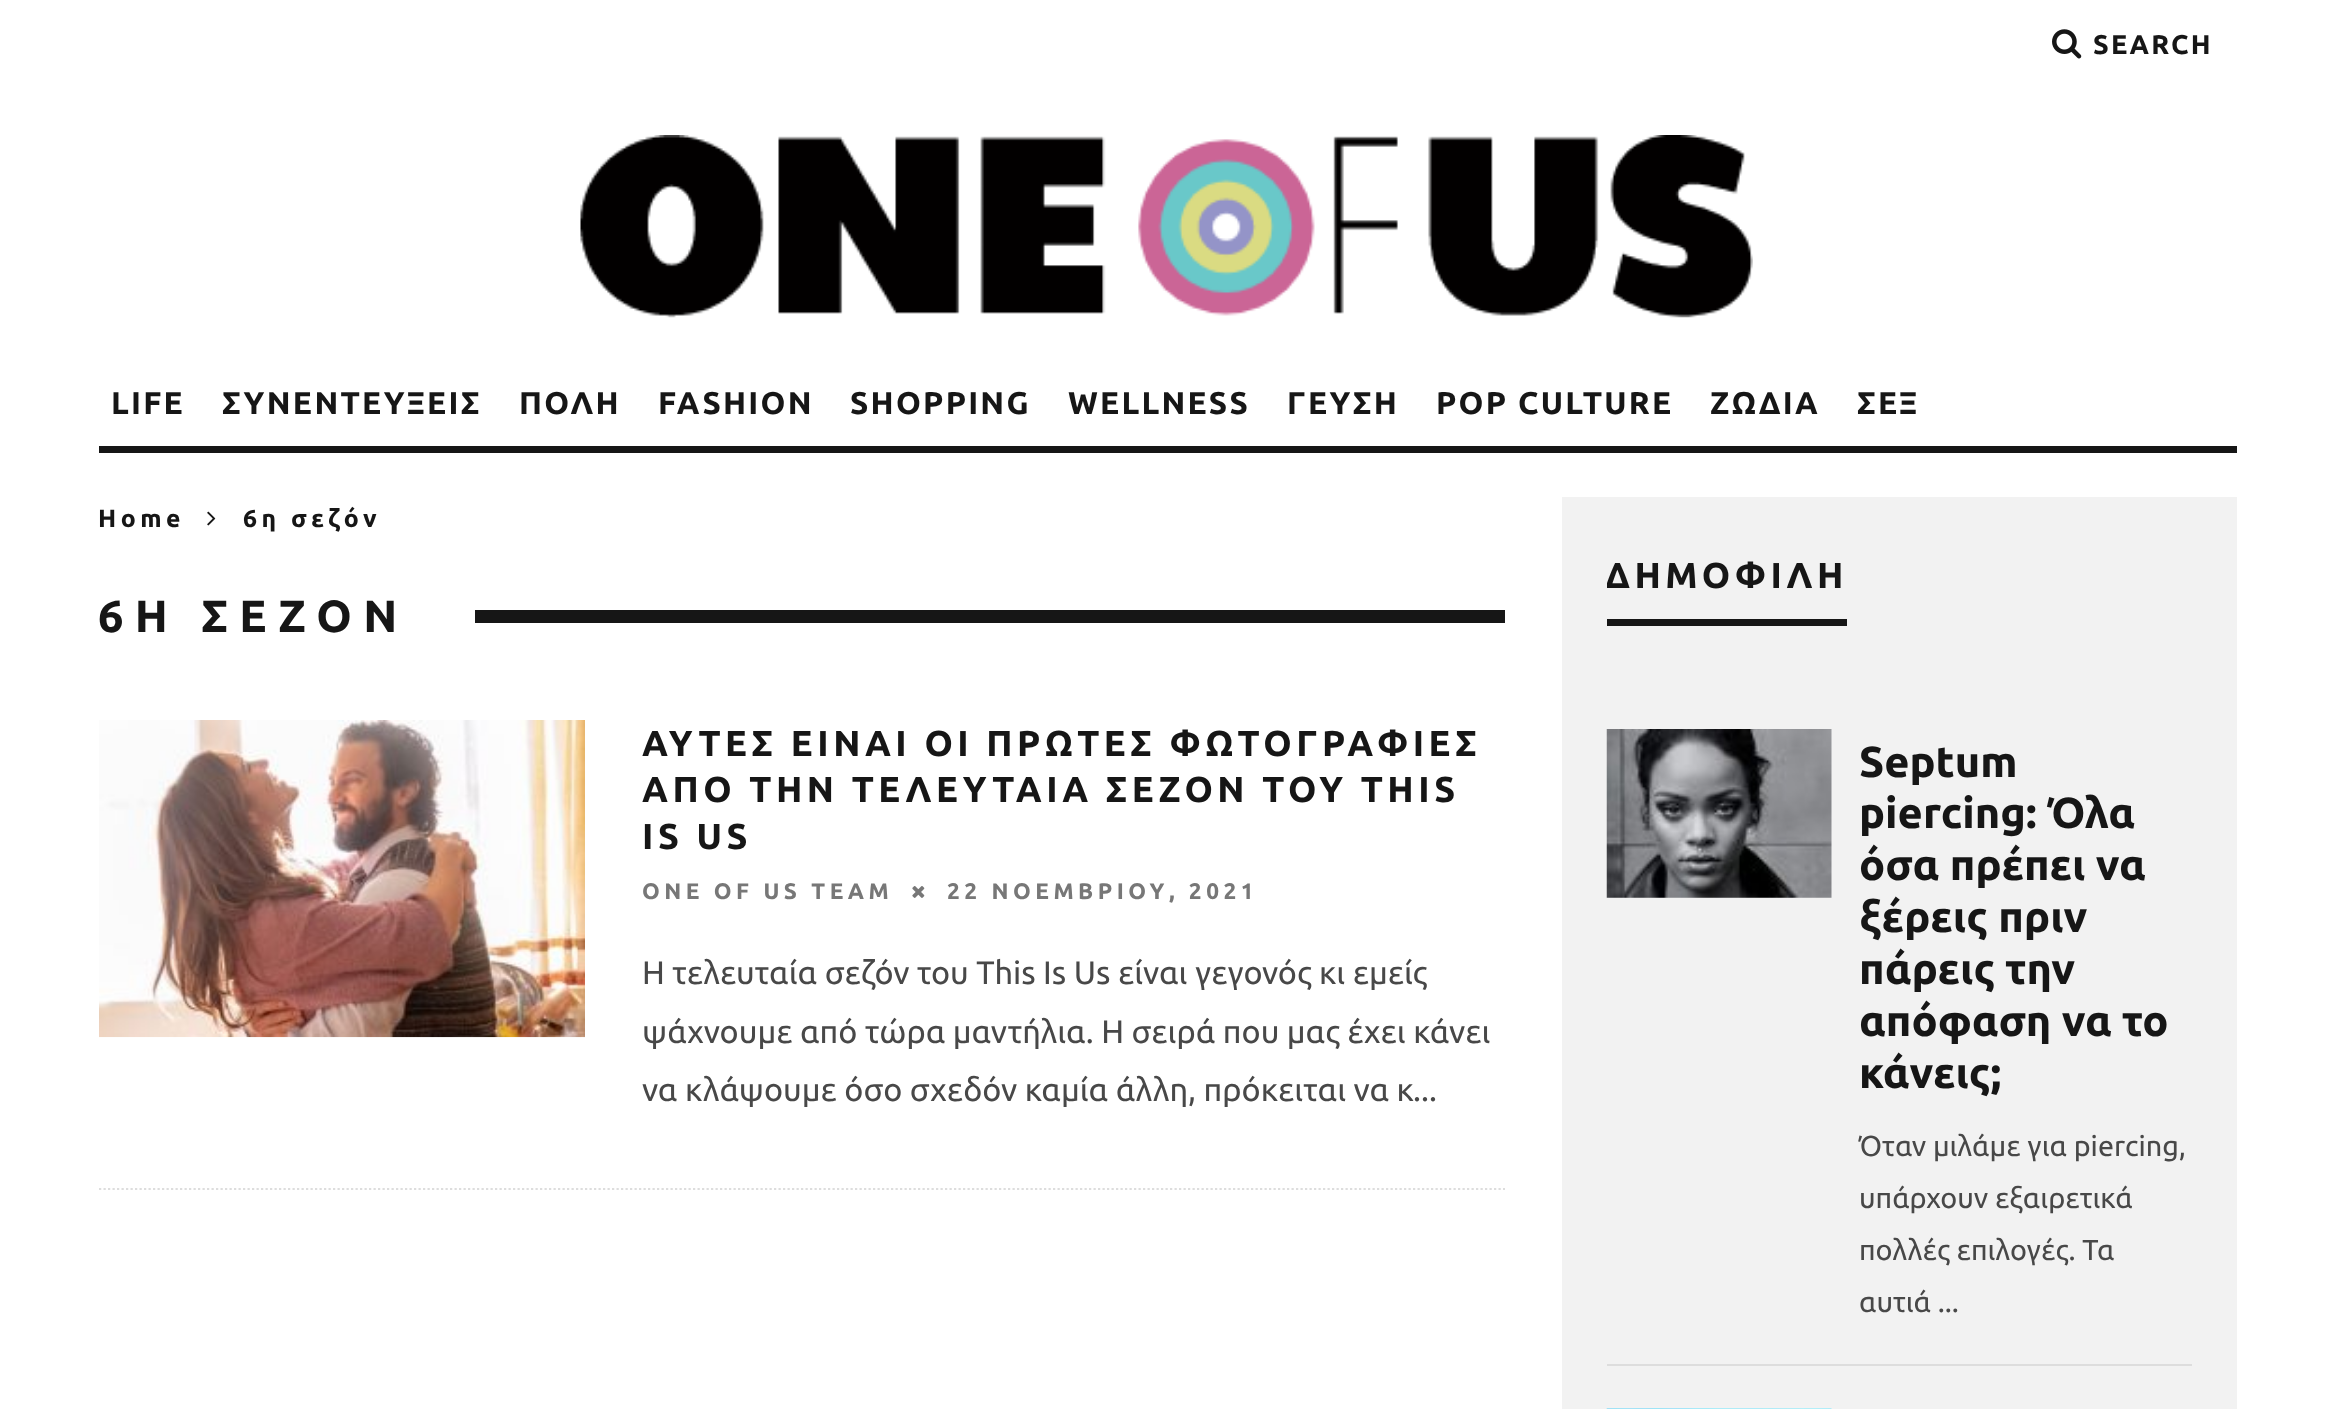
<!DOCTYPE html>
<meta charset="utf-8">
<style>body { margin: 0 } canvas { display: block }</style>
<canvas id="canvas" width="2333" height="1409"></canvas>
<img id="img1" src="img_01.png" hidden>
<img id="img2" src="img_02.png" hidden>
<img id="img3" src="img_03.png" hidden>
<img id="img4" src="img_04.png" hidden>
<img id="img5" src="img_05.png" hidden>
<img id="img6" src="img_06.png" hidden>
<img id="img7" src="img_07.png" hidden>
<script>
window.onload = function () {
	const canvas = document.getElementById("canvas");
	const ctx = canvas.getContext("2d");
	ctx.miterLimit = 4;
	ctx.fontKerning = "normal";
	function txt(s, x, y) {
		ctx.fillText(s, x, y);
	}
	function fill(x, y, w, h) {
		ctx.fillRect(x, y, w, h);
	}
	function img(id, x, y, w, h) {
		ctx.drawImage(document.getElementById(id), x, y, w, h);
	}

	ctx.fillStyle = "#FFFFFF";
	fill(0, 0, 2333, 1409);
	img("img1", 2052, 29, 30, 30);
	img("img2", 580, 135, 1173, 183);
	ctx.fillStyle = "#161616";
	fill(99, 446, 2138, 7);
	img("img3", 207, 511, 9, 15);
	fill(475, 610, 1030, 13);
	ctx.beginPath();
	ctx.moveTo(99, 1189);
	ctx.lineTo(1505, 1189);
	ctx.strokeStyle = "#DDDDDD";
	ctx.lineWidth = 2.2;
	ctx.setLineDash([2.25, 2.25]);
	ctx.stroke();
	img("img4", 99, 720, 486, 318);
	img("img5", 912, 886, 13, 12);
	ctx.fillStyle = "#F2F2F2";
	fill(1562, 497, 675, 912);
	ctx.fillStyle = "#161616";
	fill(1607, 619, 240, 7);
	ctx.fillStyle = "#DDDDDD";
	fill(1607, 1364, 585, 2);
	img("img6", 1606, 729, 226, 169);
	img("img7", 1606, 1408, 226, 1);
	ctx.letterSpacing = "2.25px";
	ctx.font = "bold 27px Ubuntu";
	ctx.fillStyle = "#161616";
	txt("SEARCH", 2093, 54);
	ctx.font = "bold 31.5px Ubuntu";
	txt("LIFE", 111, 414);
	txt("ΣΥΝΕΝΤΕΥΞΕΙΣ", 222, 414);
	txt("ΠΟΛΗ", 519, 414);
	txt("FASHION", 658, 414);
	txt("SHOPPING", 850, 414);
	txt("WELLNESS", 1068, 414);
	txt("ΓΕΥΣΗ", 1287, 414);
	txt("POP CULTURE", 1436, 414);
	txt("ΖΩΔΙΑ", 1710, 414);
	txt("ΣΕΞ", 1857, 414);
	ctx.letterSpacing = "4.5px";
	ctx.font = "bold 24.75px Ubuntu";
	txt("Home", 98, 527);
	txt("6η σεζόν", 243, 527);
	ctx.letterSpacing = "11.25px";
	ctx.font = "bold 45px Ubuntu";
	txt("6Η ΣΕΖΟΝ", 98, 632);
	ctx.letterSpacing = "4.5px";
	ctx.font = "bold 36px Ubuntu";
	txt("ΑΥΤΕΣ ΕΙΝΑΙ ΟΙ ΠΡΩΤΕΣ ΦΩΤΟΓΡΑΦΙΕΣ", 642, 756);
	txt("ΑΠΟ ΤΗΝ ΤΕΛΕΥΤΑΙΑ ΣΕΖΟΝ ΤΟΥ THIS", 642, 802);
	txt("IS US", 642, 849);
	ctx.font = "bold 22.5px Ubuntu";
	ctx.fillStyle = "#777777";
	txt("ONE OF US TEAM", 642, 899);
	txt("22 ΝΟΕΜΒΡΙΟΥ, 2021", 947, 899);
	ctx.letterSpacing = "0px";
	ctx.font = "32.4px Ubuntu";
	ctx.fillStyle = "#484848";
	txt("Η τελευταία σεζόν του This Is Us είναι γεγονός κι εμείς", 642, 984);
	txt("ψάχνουμε από τώρα μαντήλια. Η σειρά που μας έχει κάνει", 642, 1043);
	txt("να κλάψουμε όσο σχεδόν καμία άλλη, πρόκειται να κ", 642, 1101);
	txt("...", 1413, 1101);
	ctx.save();
	ctx.beginPath();
	ctx.rect(1607, 542, 585, 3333);
	ctx.clip();
	ctx.letterSpacing = "4.5px";
	ctx.font = "bold 36px Ubuntu";
	ctx.fillStyle = "#161616";
	txt("ΔΗΜΟΦΙΛΗ", 1605, 588);
	ctx.restore();
	ctx.font = "bold 43.25px Ubuntu";
	ctx.fillStyle = "#161616";
	txt("Septum", 1859, 777);
	txt("piercing: Όλα", 1859, 828);
	txt("όσα πρέπει να", 1859, 880);
	txt("ξέρεις πριν", 1859, 932);
	txt("πάρεις την", 1859, 984);
	txt("απόφαση να το", 1859, 1036);
	txt("κάνεις;", 1859, 1088);
	ctx.font = "28.75px Ubuntu";
	ctx.fillStyle = "#484848";
	txt("Όταν μιλάμε για piercing,", 1859, 1156);
	txt("υπάρχουν εξαιρετικά", 1859, 1208);
	txt("πολλές επιλογές. Τα", 1859, 1260);
	txt("αυτιά ...", 1859, 1312);
};
</script>
